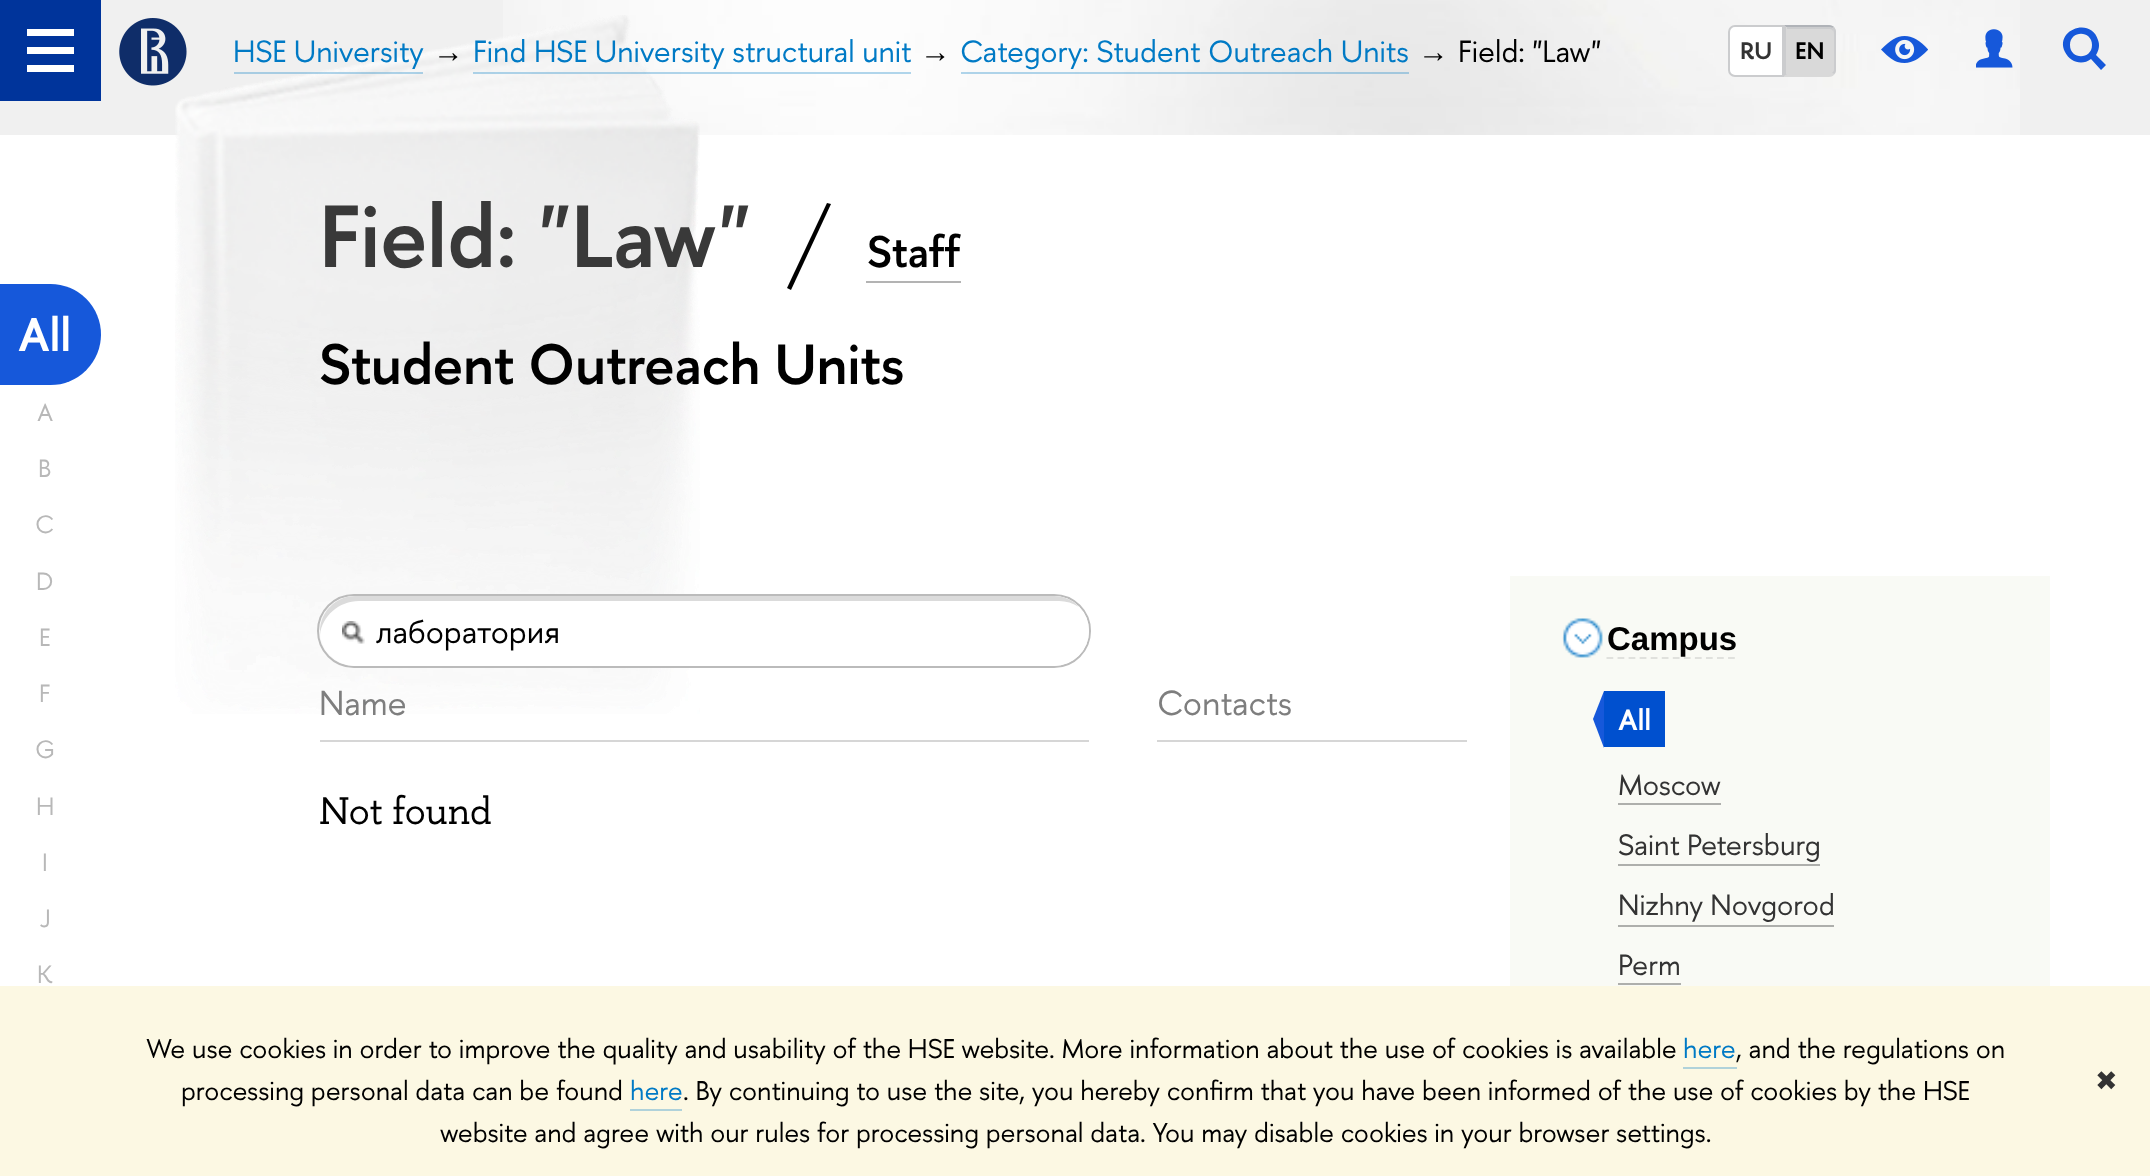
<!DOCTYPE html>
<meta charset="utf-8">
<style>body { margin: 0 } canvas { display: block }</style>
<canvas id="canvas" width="2150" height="1176"></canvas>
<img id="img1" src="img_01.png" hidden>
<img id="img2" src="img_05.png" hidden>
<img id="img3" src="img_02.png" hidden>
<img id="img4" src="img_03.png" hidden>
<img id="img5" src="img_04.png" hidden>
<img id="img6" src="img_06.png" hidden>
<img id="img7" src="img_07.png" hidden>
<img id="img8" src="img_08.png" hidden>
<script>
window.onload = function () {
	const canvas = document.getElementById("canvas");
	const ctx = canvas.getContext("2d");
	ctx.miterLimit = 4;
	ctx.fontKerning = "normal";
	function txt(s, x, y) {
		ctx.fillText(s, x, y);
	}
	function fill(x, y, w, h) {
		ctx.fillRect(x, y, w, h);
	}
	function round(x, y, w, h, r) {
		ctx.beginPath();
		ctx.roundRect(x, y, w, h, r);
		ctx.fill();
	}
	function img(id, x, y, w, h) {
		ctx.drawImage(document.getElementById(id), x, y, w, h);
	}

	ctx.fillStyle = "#FFFFFF";
	fill(0, 0, 2150, 1176);
	ctx.fillStyle = "#F0F0F0";
	fill(0, 0, 2150, 135);
	img("img1", 503, 0, 1517, 135);
	ctx.fillStyle = "#00349B";
	fill(0, 0, 101, 101);
	ctx.fillStyle = "#FFFFFF";
	fill(27, 29, 47, 7);
	fill(27, 47, 47, 7);
	fill(27, 65, 47, 7);
	img("img2", 175, 15, 525, 699);
	img("img3", 119, 18, 68, 68);
	ctx.fillStyle = "rgba(0, 122, 197, 0.3)";
	fill(234, 72, 189, 2);
	fill(473, 72, 438, 2);
	fill(961, 72, 448, 2);
	ctx.fillStyle = "#FFFFFF";
	ctx.beginPath();
	ctx.roundRect(1729, 26, 54, 50, [6, 0, 0, 6]);
	ctx.fill();
	ctx.strokeStyle = "#CBCCCE";
	ctx.lineWidth = 2;
	ctx.stroke();
	ctx.fillStyle = "#D9D9D9";
	ctx.beginPath();
	ctx.roundRect(1784, 25, 52, 52, [0, 7, 7, 0]);
	ctx.fill();
	ctx.fillStyle = "#CBCCCE";
	ctx.beginPath();
	ctx.moveTo(1787, 27);
	ctx.lineTo(1787, 29);
	ctx.lineTo(1829, 29);
	ctx.bezierCurveTo(1832, 29, 1834, 31, 1834, 34);
	ctx.bezierCurveTo(1834, 31, 1833, 27, 1829, 27);
	ctx.closePath();
	ctx.fill();
	ctx.fillStyle = "#B0B3B8";
	ctx.beginPath();
	ctx.moveTo(1834, 27);
	ctx.bezierCurveTo(1833, 26, 1831, 25, 1829, 25);
	ctx.lineTo(1784, 25);
	ctx.lineTo(1786, 27);
	ctx.lineTo(1829, 27);
	ctx.bezierCurveTo(1830, 27, 1832, 27, 1832, 28);
	ctx.closePath();
	ctx.fill();
	ctx.fillStyle = "#CBCCCE";
	ctx.beginPath();
	ctx.moveTo(1834, 27);
	ctx.bezierCurveTo(1835, 28, 1836, 30, 1836, 32);
	ctx.lineTo(1836, 70);
	ctx.bezierCurveTo(1836, 72, 1835, 73, 1834, 74);
	ctx.lineTo(1832, 73);
	ctx.bezierCurveTo(1833, 72, 1834, 71, 1834, 70);
	ctx.lineTo(1834, 32);
	ctx.bezierCurveTo(1834, 30, 1833, 29, 1832, 28);
	ctx.closePath();
	ctx.fill();
	ctx.fillStyle = "#D9D9D9";
	ctx.beginPath();
	ctx.moveTo(1834, 74);
	ctx.bezierCurveTo(1833, 75, 1831, 76, 1829, 76);
	ctx.lineTo(1785, 76);
	ctx.lineTo(1787, 74);
	ctx.lineTo(1829, 74);
	ctx.bezierCurveTo(1830, 74, 1832, 74, 1832, 73);
	ctx.closePath();
	ctx.fill();
	ctx.fillStyle = "#CBCCCE";
	ctx.beginPath();
	ctx.moveTo(1786, 27);
	ctx.lineTo(1786, 74);
	ctx.lineTo(1787, 74);
	ctx.lineTo(1784, 76);
	ctx.lineTo(1784, 25);
	ctx.closePath();
	ctx.fill();
	img("img4", 1881, 36, 47, 27);
	img("img5", 1976, 29, 37, 39);
	ctx.fillStyle = "#1658DA";
	ctx.beginPath();
	ctx.moveTo(2092, 45);
	ctx.bezierCurveTo(2092, 30, 2070, 30, 2070, 45);
	ctx.bezierCurveTo(2070, 60, 2092, 60, 2092, 45);
	ctx.closePath();
	ctx.moveTo(2101, 70);
	ctx.lineTo(2091, 59);
	ctx.bezierCurveTo(2082, 66, 2070, 62, 2065, 52);
	ctx.bezierCurveTo(2054, 30, 2091, 16, 2098, 40);
	ctx.bezierCurveTo(2100, 45, 2099, 50, 2096, 55);
	ctx.lineTo(2106, 65);
	ctx.closePath();
	ctx.fill();
	img("img6", 693, 137, 5, 94);
	ctx.fillStyle = "#000000";
	ctx.beginPath();
	ctx.moveTo(827, 203);
	ctx.lineTo(831, 204);
	ctx.lineTo(791, 290);
	ctx.lineTo(787, 288);
	ctx.closePath();
	ctx.fill();
	ctx.fillStyle = "#B3B3B3";
	fill(866, 281, 95, 2);
	ctx.fillStyle = "#1658DA";
	ctx.beginPath();
	ctx.roundRect(0, 284, 101, 101, [0, 50.5, 50.5, 0]);
	ctx.fill();
	ctx.beginPath();
	ctx.roundRect(318, 595, 772, 72, 36);
	ctx.strokeStyle = "#BBBBBB";
	ctx.stroke();
	ctx.fillStyle = "#FFFFFF";
	round(320, 596, 769, 70, 35);
	img("img7", 342, 621, 23, 23);
	ctx.fillStyle = "#DBDBDB";
	ctx.beginPath();
	ctx.moveTo(359, 601);
	ctx.lineTo(1059, 601);
	ctx.bezierCurveTo(1066, 601, 1073, 603, 1079, 607);
	ctx.bezierCurveTo(1073, 600, 1064, 596, 1054, 596);
	ctx.lineTo(355, 596);
	ctx.bezierCurveTo(336, 596, 320, 612, 320, 631);
	ctx.lineTo(320, 635);
	ctx.bezierCurveTo(322, 616, 339, 601, 359, 601);
	ctx.closePath();
	ctx.fill();
	ctx.fillStyle = "#D6D6D6";
	fill(320, 740, 769, 2);
	fill(1157, 740, 310, 2);
	ctx.fillStyle = "#F9FAF5";
	fill(1510, 576, 540, 410);
	img("img8", 1562, 618, 41, 40);
	ctx.beginPath();
	ctx.moveTo(1606.5, 658);
	ctx.lineTo(1735, 658);
	ctx.strokeStyle = "#E0E1DD";
	ctx.lineWidth = 2.2;
	ctx.setLineDash([6.75, 4.3]);
	ctx.stroke();
	ctx.fillStyle = "#0050CF";
	fill(1604, 691, 61, 56);
	ctx.fillStyle = "#1658DA";
	ctx.beginPath();
	ctx.moveTo(1604, 691);
	ctx.lineTo(1593, 719);
	ctx.lineTo(1604, 748);
	ctx.closePath();
	ctx.fill();
	ctx.fillStyle = "#AEAFAC";
	fill(1618, 803, 103, 2);
	fill(1618, 864, 202, 2);
	fill(1618, 925, 216, 2);
	fill(1618, 983, 63, 2);
	ctx.fillStyle = "#FCF8E3";
	fill(0, 986, 2150, 190);
	ctx.fillStyle = "#B0D2DA";
	fill(1683, 1067, 54, 2);
	fill(630, 1109, 52, 2);
	ctx.font = "30.6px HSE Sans";
	ctx.fillStyle = "#007AC5";
	txt("HSE University", 233, 62);
	ctx.font = "30.6px Liberation Sans";
	ctx.fillStyle = "#000000";
	txt("→", 433, 62);
	ctx.font = "30.6px HSE Sans";
	ctx.fillStyle = "#007AC5";
	txt("Find HSE University structural unit", 473, 62);
	ctx.font = "30.6px Liberation Sans";
	ctx.fillStyle = "#000000";
	txt("→", 920, 62);
	ctx.font = "30.6px HSE Sans";
	ctx.fillStyle = "#007AC5";
	txt("Category: Student Outreach Units", 960, 62);
	ctx.font = "30.6px Liberation Sans";
	ctx.fillStyle = "#000000";
	txt("→", 1418, 62);
	ctx.font = "30.6px HSE Sans";
	txt("Field: \"Law\"", 1458, 62);
	ctx.font = "600 24px HSE Sans";
	ctx.fillStyle = "#333333";
	txt("RU", 1740, 59);
	ctx.fillStyle = "#000000";
	txt("EN", 1795, 59);
	ctx.font = "600 88px HSE Sans";
	ctx.fillStyle = "#393939";
	txt("Field: \"Law\"", 319, 267);
	ctx.font = "600 44px HSE Sans";
	ctx.fillStyle = "#000000";
	txt("Staff", 867, 267);
	ctx.font = "600 56.6px HSE Sans";
	txt("Student Outreach Units", 319, 384);
	ctx.font = "600 47px HSE Sans";
	ctx.fillStyle = "#FFFFFF";
	txt("All", 18, 351);
	ctx.font = "25px HSE Sans";
	ctx.fillStyle = "#B8B8B8";
	txt("A", 37, 421);
	txt("B", 38, 477);
	txt("C", 35, 533);
	txt("D", 36, 590);
	txt("E", 39, 646);
	txt("F", 39, 702);
	txt("G", 35, 758);
	txt("H", 36, 815);
	txt("I", 42, 871);
	txt("J", 40, 927);
	txt("K", 37, 983);
	ctx.font = "32.5px HSE Sans";
	ctx.fillStyle = "#000000";
	txt("лаборатория", 376, 643);
	ctx.font = "34.5px HSE Sans";
	ctx.fillStyle = "#7E7E7E";
	txt("Name", 319, 715);
	txt("Contacts", 1157, 715);
	ctx.font = "38.25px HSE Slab";
	ctx.fillStyle = "#000000";
	txt("Not found", 319, 824);
	ctx.font = "bold 33px Liberation Sans";
	txt("Campus", 1607, 650);
	ctx.font = "600 29.25px HSE Sans";
	ctx.fillStyle = "#FFFFFF";
	txt("All", 1618, 730);
	ctx.font = "29.25px HSE Sans";
	ctx.fillStyle = "#333333";
	txt("Moscow", 1618, 795);
	txt("Saint Petersburg", 1618, 855);
	txt("Nizhny Novgorod", 1618, 915);
	txt("Perm", 1618, 975);
	ctx.font = "27px HSE Sans";
	ctx.fillStyle = "#000000";
	txt("We use cookies in order to improve the quality and usability of the HSE website. More information about the use of cookies is available", 146, 1058);
	ctx.fillStyle = "#007AC5";
	txt("here", 1683, 1058);
	ctx.fillStyle = "#000000";
	txt(", and the regulations on", 1736, 1058);
	txt("processing personal data can be found", 181, 1100);
	ctx.fillStyle = "#007AC5";
	txt("here", 630, 1100);
	ctx.fillStyle = "#000000";
	txt(". By continuing to use the site, you hereby confirm that you have been informed of the use of cookies by the HSE", 683, 1100);
	txt("website and agree with our rules for processing personal data. You may disable cookies in your browser settings.", 440, 1142);
	ctx.font = "27px DejaVu Sans";
	ctx.fillStyle = "#333333";
	txt("✖", 2095, 1090);
};
</script>
